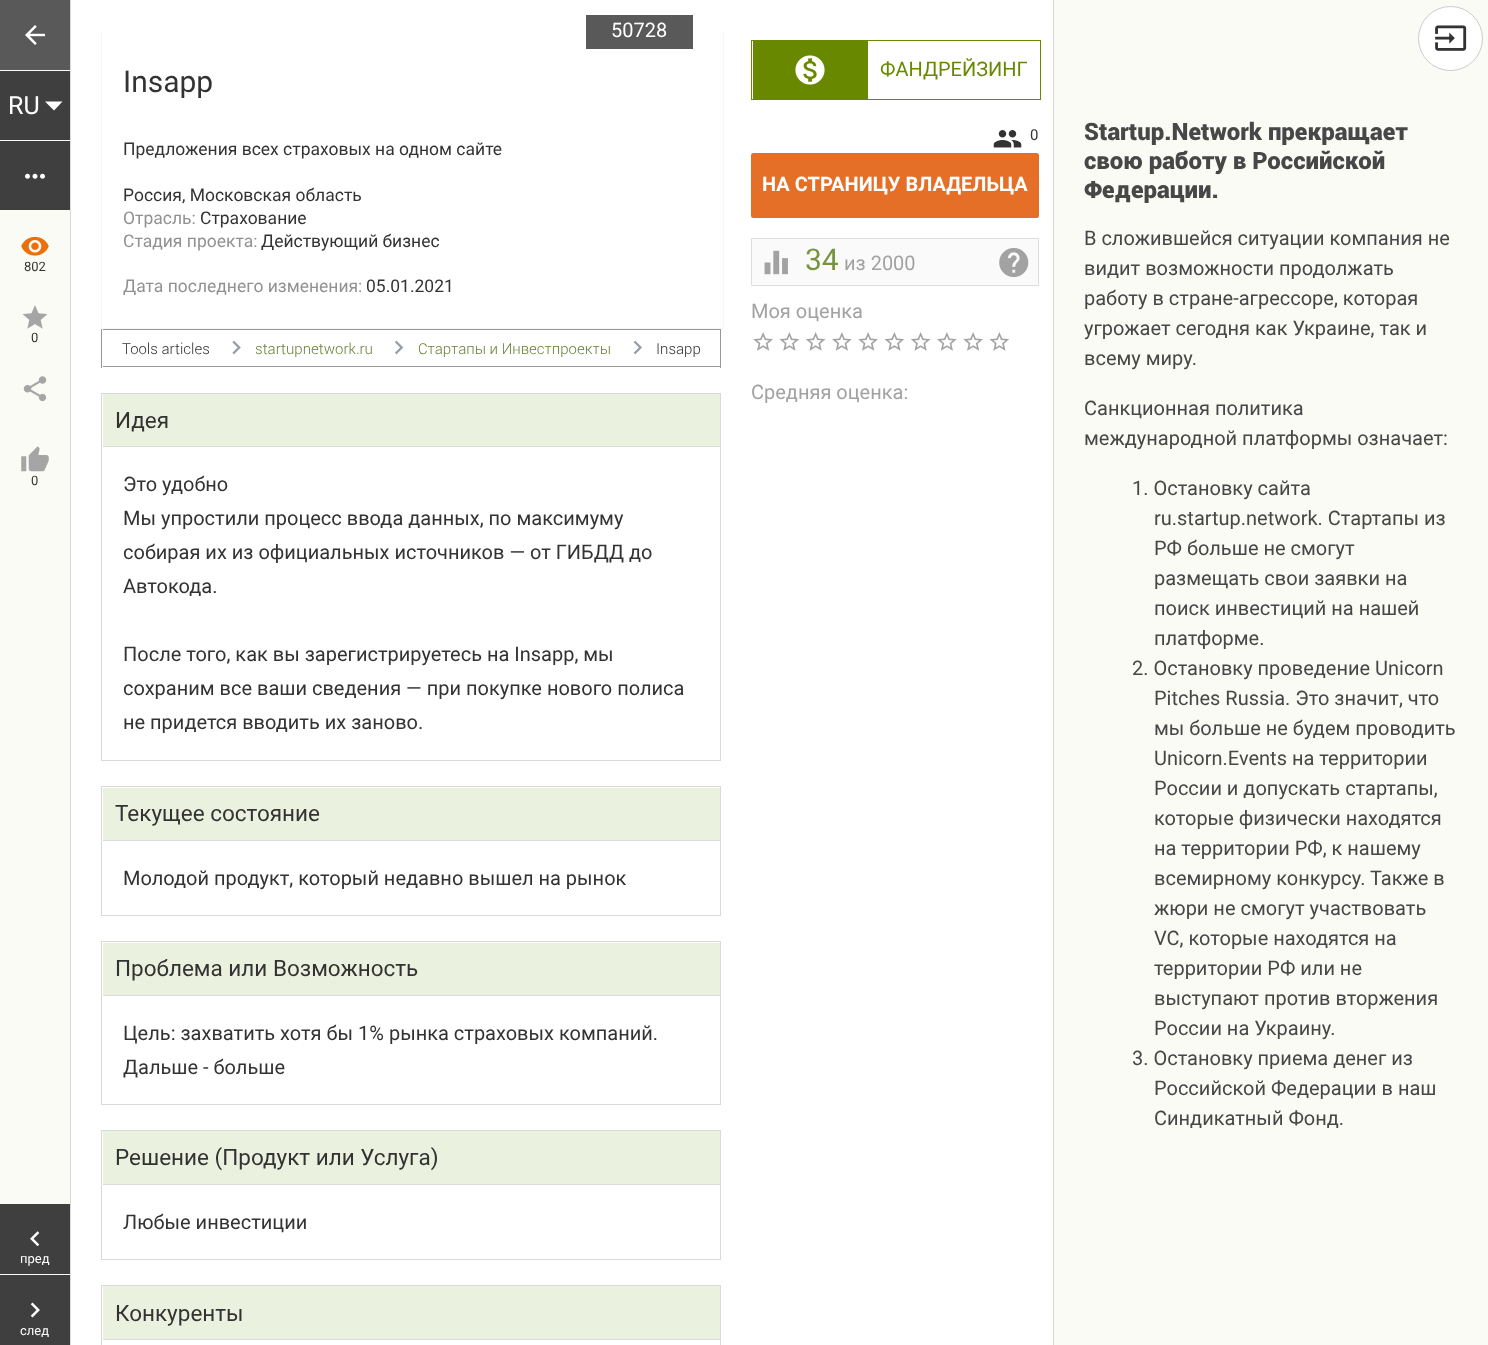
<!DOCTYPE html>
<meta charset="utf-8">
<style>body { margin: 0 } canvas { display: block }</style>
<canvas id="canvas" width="1488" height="1345"></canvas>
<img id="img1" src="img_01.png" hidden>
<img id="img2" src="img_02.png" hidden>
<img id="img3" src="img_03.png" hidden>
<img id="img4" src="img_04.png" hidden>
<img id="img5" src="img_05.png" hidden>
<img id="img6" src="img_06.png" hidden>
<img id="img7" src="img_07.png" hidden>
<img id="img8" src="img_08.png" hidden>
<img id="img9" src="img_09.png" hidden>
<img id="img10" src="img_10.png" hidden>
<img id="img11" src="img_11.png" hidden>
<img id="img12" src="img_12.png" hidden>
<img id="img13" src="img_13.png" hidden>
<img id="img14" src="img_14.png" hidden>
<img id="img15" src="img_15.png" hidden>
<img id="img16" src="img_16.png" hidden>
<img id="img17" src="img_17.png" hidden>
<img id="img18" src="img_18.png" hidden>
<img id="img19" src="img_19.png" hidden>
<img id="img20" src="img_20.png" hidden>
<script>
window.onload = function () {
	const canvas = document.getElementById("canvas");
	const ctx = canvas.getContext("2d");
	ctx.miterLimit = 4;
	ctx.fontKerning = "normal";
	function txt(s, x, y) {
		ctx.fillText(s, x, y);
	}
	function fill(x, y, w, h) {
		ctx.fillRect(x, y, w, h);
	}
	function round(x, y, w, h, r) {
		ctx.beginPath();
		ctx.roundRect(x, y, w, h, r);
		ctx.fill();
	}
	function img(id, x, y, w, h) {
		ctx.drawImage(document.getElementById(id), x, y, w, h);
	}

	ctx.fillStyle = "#FFFFFF";
	fill(0, 0, 1488, 1345);
	ctx.fillStyle = "#F9FBF4";
	fill(1054, 0, 434, 1345);
	ctx.fillStyle = "#FFFFFF";
	ctx.beginPath();
	ctx.arc(1450.5, 38.5, 32, 0, Math.PI * 2);
	ctx.fill();
	ctx.strokeStyle = "#CCCCCC";
	ctx.stroke();
	img("img1", 1435, 25, 32, 26);
	ctx.fillStyle = "#F9FBF4";
	fill(0, 210, 70, 994);
	ctx.fillStyle = "#D9D9D9";
	fill(70, 0, 1, 1345);
	ctx.fillStyle = "#595959";
	fill(0, 0, 70, 70);
	img("img2", 25, 25, 20, 20);
	ctx.fillStyle = "#3F3F3F";
	fill(0, 71, 70, 69);
	ctx.fillStyle = "#F9FBF4";
	fill(0, 70, 70, 1);
	ctx.fillStyle = "#FFFFFF";
	ctx.beginPath();
	ctx.moveTo(45, 101.5);
	ctx.lineTo(62.5, 101.5);
	ctx.lineTo(54, 110.5);
	ctx.closePath();
	ctx.fill();
	ctx.fillStyle = "#3F3F3F";
	fill(0, 141, 70, 69);
	ctx.fillStyle = "#F9FBF4";
	fill(0, 140, 70, 1);
	img("img3", 25, 173, 20, 6);
	img("img4", 21, 236, 28, 20);
	img("img5", 22, 305, 26, 24);
	img("img6", 23, 376, 24, 26);
	img("img7", 21, 446, 28, 26);
	ctx.fillStyle = "#3F3F3F";
	fill(0, 1204, 70, 70);
	img("img8", 30, 1231, 10, 16);
	fill(0, 1275, 70, 70);
	ctx.fillStyle = "#F9FBF4";
	fill(0, 1274, 70, 1);
	img("img9", 30, 1302, 10, 16);
	ctx.fillStyle = "#F6F6F6";
	fill(723, 31, 1, 298);
	fill(101, 328, 623, 1);
	fill(101, 31, 1, 298);
	ctx.fillStyle = "#595959";
	fill(586, 15, 107, 34);
	ctx.strokeStyle = "#688800";
	ctx.strokeRect(751.5, 40.5, 289, 59);
	ctx.fillStyle = "#688800";
	fill(753, 41, 115, 58);
	img("img10", 795, 55, 30, 30);
	ctx.fillStyle = "#E56F26";
	round(751, 153, 288, 65, 2.5);
	img("img11", 993, 130, 29, 18);
	ctx.fillStyle = "#FAFAFA";
	ctx.beginPath();
	ctx.rect(751.5, 238.5, 287, 47);
	ctx.fill();
	ctx.strokeStyle = "#DDDDDD";
	ctx.stroke();
	img("img12", 764, 250, 24, 25);
	img("img13", 999, 248, 30, 29);
	img("img14", 753, 332, 20, 19);
	img("img15", 779, 332, 20, 19);
	img("img16", 806, 332, 20, 19);
	img("img17", 832, 332, 20, 19);
	img("img14", 858, 332, 20, 19);
	img("img15", 884, 332, 20, 19);
	img("img16", 911, 332, 20, 19);
	img("img17", 937, 332, 20, 19);
	img("img14", 963, 332, 20, 19);
	img("img15", 989, 332, 20, 19);
	ctx.fillStyle = "#979797";
	fill(720, 329, 1, 39);
	fill(101, 329, 1, 39);
	fill(103, 329, 617, 1);
	img("img18", 232, 340, 9, 15);
	img("img19", 395, 340, 9, 15);
	img("img20", 633, 340, 9, 15);
	fill(103, 366, 617, 1);
	ctx.strokeStyle = "#D9D9D9";
	ctx.strokeRect(101.5, 393.5, 619, 367);
	ctx.fillStyle = "#EBF1DF";
	fill(103, 394, 617, 52);
	ctx.fillStyle = "#DCDCDD";
	fill(103, 446, 617, 1);
	ctx.strokeRect(101.5, 786.5, 619, 129);
	ctx.fillStyle = "#EBF1DF";
	fill(103, 788, 617, 52);
	ctx.fillStyle = "#DCDCDD";
	fill(103, 840, 617, 1);
	ctx.strokeRect(101.5, 941.5, 619, 163);
	ctx.fillStyle = "#EBF1DF";
	fill(103, 943, 617, 52);
	ctx.fillStyle = "#DCDCDD";
	fill(103, 995, 617, 1);
	ctx.strokeRect(101.5, 1130.5, 619, 129);
	ctx.fillStyle = "#EBF1DF";
	fill(103, 1131, 617, 53);
	ctx.fillStyle = "#DCDCDD";
	fill(103, 1184, 617, 1);
	ctx.strokeRect(101.5, 1285.5, 619, 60);
	ctx.fillStyle = "#EBF1DF";
	fill(103, 1286, 617, 53);
	ctx.fillStyle = "#DCDCDD";
	fill(103, 1339, 617, 1);
	ctx.fillStyle = "#D9D9D9";
	fill(1053, 0, 1, 1345);
	ctx.font = "25px Roboto";
	ctx.fillStyle = "#FFFFFF";
	txt("RU", 8, 114);
	ctx.font = "13px Roboto";
	ctx.fillStyle = "#333333";
	txt("802", 24, 271);
	txt("0", 31, 342);
	txt("0", 31, 485);
	ctx.fillStyle = "#FFFFFF";
	txt("пред", 20, 1263);
	txt("след", 20, 1335);
	ctx.font = "20px Roboto";
	txt("50728", 611, 37);
	ctx.font = "30px Roboto";
	ctx.fillStyle = "#333333";
	txt("Insapp", 123, 92);
	ctx.font = "17.5px Roboto";
	txt("Предложения всех страховых на одном сайте", 123, 155);
	txt("Россия, Московская область", 123, 201);
	ctx.fillStyle = "#919191";
	txt("Отрасль:", 123, 224);
	ctx.fillStyle = "#333333";
	txt("Страхование", 200, 224);
	ctx.fillStyle = "#919191";
	txt("Стадия проекта:", 123, 247);
	ctx.fillStyle = "#333333";
	txt("Действующий бизнес", 261, 247);
	ctx.fillStyle = "#919191";
	txt("Дата последнего изменения:", 123, 292);
	ctx.fillStyle = "#333333";
	txt("05.01.2021", 366, 292);
	ctx.font = "20px Roboto";
	ctx.fillStyle = "#688800";
	txt("ФАНДРЕЙЗИНГ", 880, 76);
	ctx.font = "15px Roboto";
	ctx.fillStyle = "#333333";
	txt("0", 1030, 140);
	ctx.font = "bold 20px Roboto";
	ctx.fillStyle = "#FFFFFF";
	txt("НА СТРАНИЦУ ВЛАДЕЛЬЦА", 762, 191);
	ctx.font = "30px Roboto";
	ctx.fillStyle = "#789440";
	txt("34", 805, 270);
	ctx.font = "20px Roboto";
	ctx.fillStyle = "#A2A2A2";
	txt("из 2000", 844, 270);
	txt("Моя оценка", 751, 318);
	txt("Средняя оценка:", 751, 399);
	ctx.font = "300 15px Roboto";
	ctx.fillStyle = "#333333";
	txt("Tools articles", 122, 354);
	ctx.fillStyle = "#688236";
	txt("startupnetwork.ru", 255, 354);
	txt("Стартапы и Инвестпроекты", 418, 354);
	ctx.fillStyle = "#333333";
	txt("Insapp", 656, 354);
	ctx.font = "22.5px Roboto";
	txt("Идея", 115, 428);
	ctx.font = "20px Roboto";
	txt("Это удобно", 123, 491);
	txt("Мы упростили процесс ввода данных, по максимуму", 123, 525);
	txt("собирая их из официальных источников — от ГИБДД до", 123, 559);
	txt("Автокода.", 123, 593);
	txt("После того, как вы зарегистрируетесь на Insapp, мы", 123, 661);
	txt("сохраним все ваши сведения — при покупке нового полиса", 123, 695);
	txt("не придется вводить их заново.", 123, 729);
	ctx.font = "22.5px Roboto";
	txt("Текущее состояние", 115, 821);
	ctx.font = "20px Roboto";
	txt("Молодой продукт, который недавно вышел на рынок", 123, 885);
	ctx.font = "22.5px Roboto";
	txt("Проблема или Возможность", 115, 976);
	ctx.font = "20px Roboto";
	txt("Цель: захватить хотя бы 1% рынка страховых компаний.", 123, 1040);
	txt("Дальше - больше", 123, 1074);
	ctx.font = "22.5px Roboto";
	txt("Решение (Продукт или Услуга)", 115, 1165);
	ctx.font = "20px Roboto";
	txt("Любые инвестиции", 123, 1229);
	ctx.font = "22.5px Roboto";
	txt("Конкуренты", 115, 1321);
	ctx.font = "900 24px Roboto";
	ctx.fillStyle = "#474747";
	txt("Startup.Network прекращает", 1084, 140);
	txt("свою работу в Российской", 1084, 169);
	txt("Федерации.", 1084, 198);
	ctx.font = "20px Roboto";
	txt("В сложившейся ситуации компания не", 1084, 245);
	txt("видит возможности продолжать", 1084, 275);
	txt("работу в стране-агрессоре, которая", 1084, 305);
	txt("угрожает сегодня как Украине, так и", 1084, 335);
	txt("всему миру.", 1084, 365);
	txt("Санкционная политика", 1084, 415);
	txt("международной платформы означает:", 1084, 445);
	txt("1. Остановку сайта", 1132, 495);
	txt("ru.startup.network. Стартапы из", 1154, 525);
	txt("РФ больше не смогут", 1154, 555);
	txt("размещать свои заявки на", 1154, 585);
	txt("поиск инвестиций на нашей", 1154, 615);
	txt("платформе.", 1154, 645);
	txt("2. Остановку проведение Unicorn", 1132, 675);
	txt("Pitches Russia. Это значит, что", 1154, 705);
	txt("мы больше не будем проводить", 1154, 735);
	txt("Unicorn.Events на территории", 1154, 765);
	txt("России и допускать стартапы,", 1154, 795);
	txt("которые физически находятся", 1154, 825);
	txt("на территории РФ, к нашему", 1154, 855);
	txt("всемирному конкурсу. Также в", 1154, 885);
	txt("жюри не смогут участвовать", 1154, 915);
	txt("VC, которые находятся на", 1154, 945);
	txt("территории РФ или не", 1154, 975);
	txt("выступают против вторжения", 1154, 1005);
	txt("России на Украину.", 1154, 1035);
	txt("3. Остановку приема денег из", 1132, 1065);
	txt("Российской Федерации в наш", 1154, 1095);
	txt("Синдикатный Фонд.", 1154, 1125);
};
</script>
